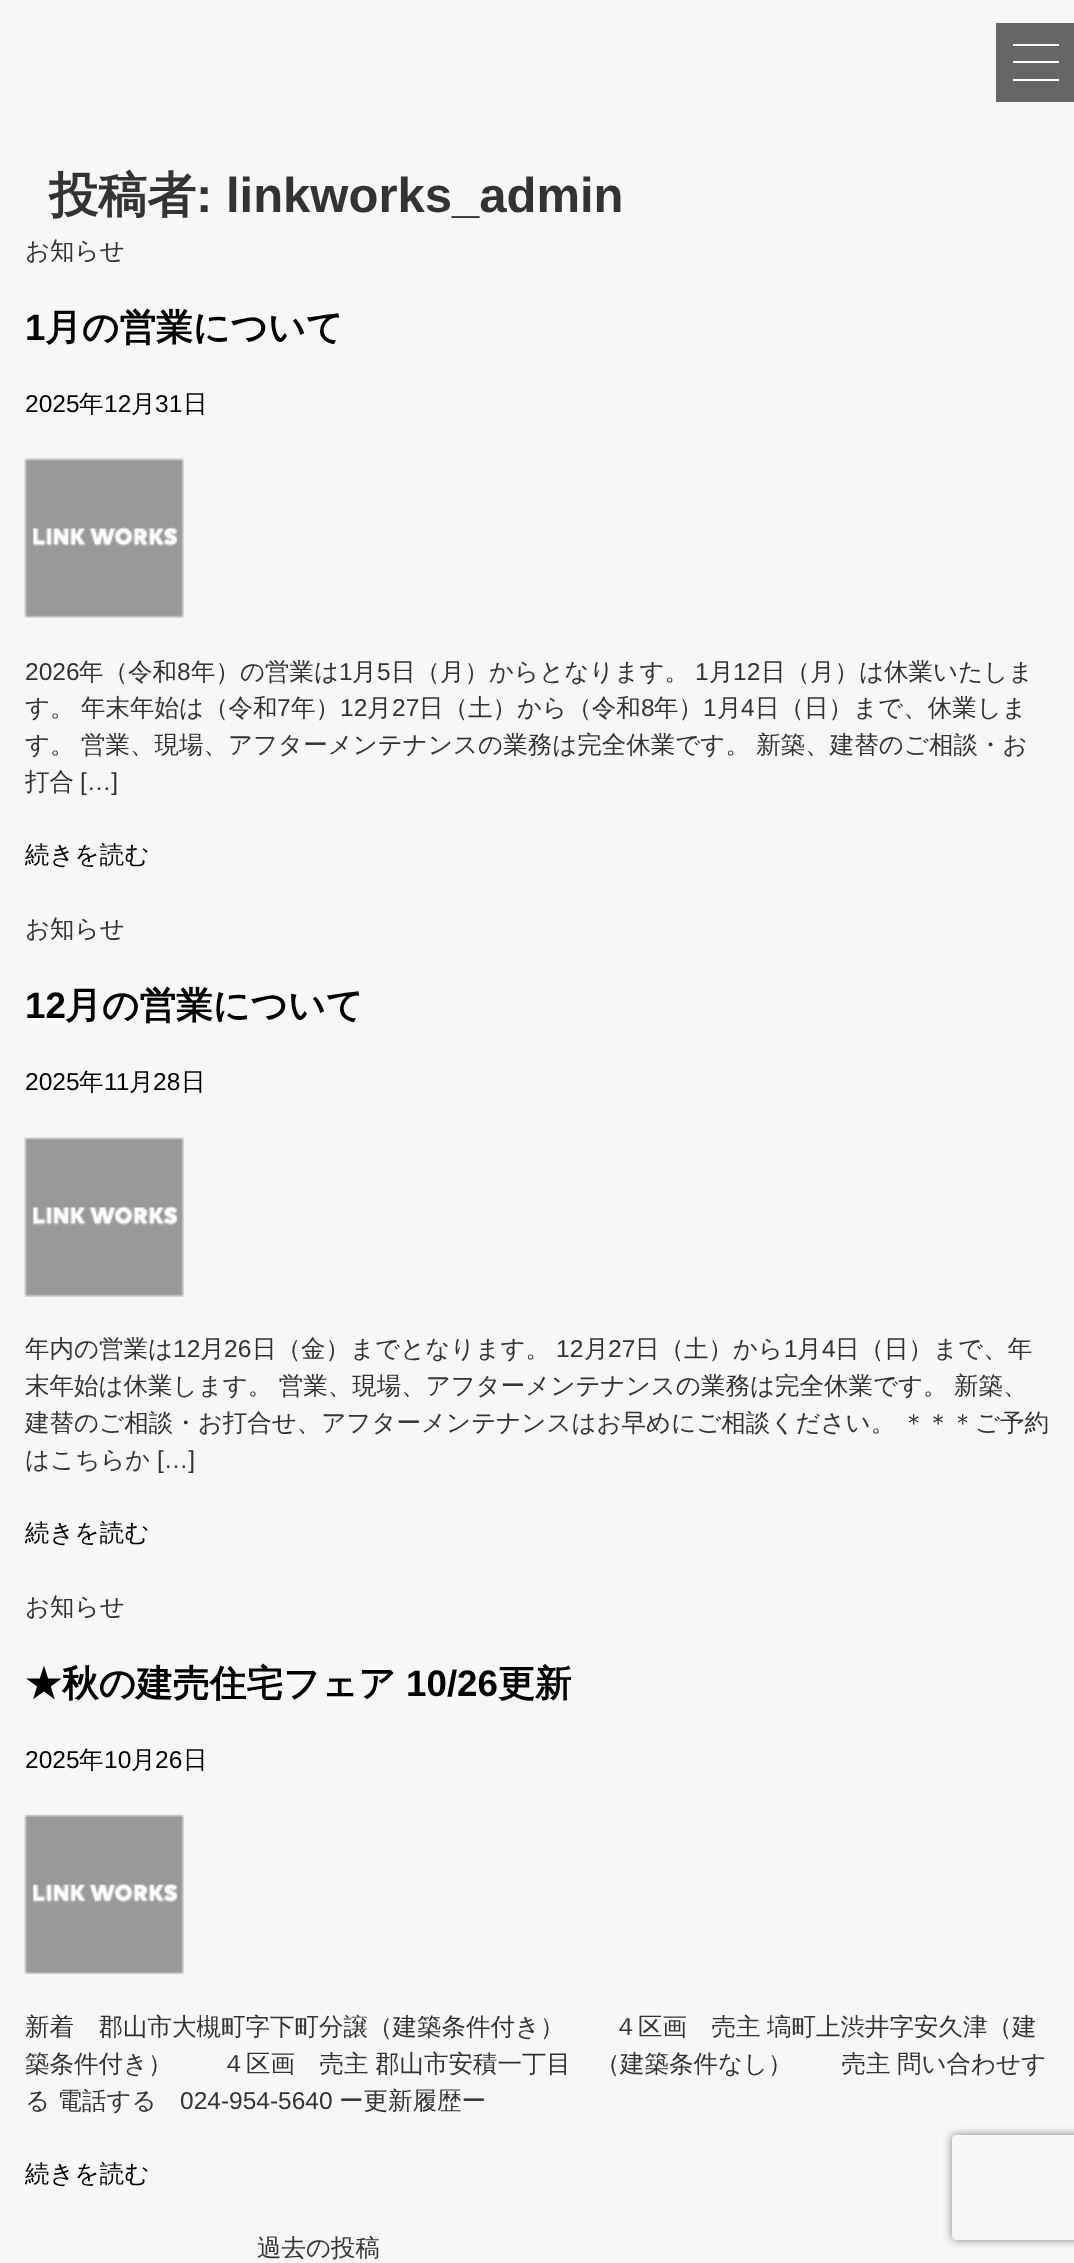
<!DOCTYPE html>
<meta charset="utf-8">
<style>body { margin: 0 } canvas { display: block }</style>
<canvas id="canvas" width="1074" height="2263"></canvas>
<img id="img1" src="img_01.png" hidden>
<img id="img2" src="img_02.png" hidden>
<script>
window.onload = function () {
	const canvas = document.getElementById("canvas");
	const ctx = canvas.getContext("2d");
	ctx.miterLimit = 4;
	ctx.fontKerning = "normal";
	function txt(s, x, y) {
		ctx.fillText(s, x, y);
	}
	function fill(x, y, w, h) {
		ctx.fillRect(x, y, w, h);
	}
	function img(id, x, y, w, h) {
		ctx.drawImage(document.getElementById(id), x, y, w, h);
	}

	ctx.fillStyle = "#F7F7F7";
	fill(0, 0, 1074, 2263);
	ctx.fillStyle = "#666666";
	fill(996, 23, 78, 79);
	ctx.fillStyle = "#FFFFFF";
	fill(1013, 44, 46, 2);
	fill(1013, 61, 46, 2);
	fill(1013, 79, 46, 2);
	img("img1", 24, 458, 160, 160);
	img("img1", 24, 1137, 160, 160);
	img("img2", 24, 1814, 160, 160);
	ctx.save();
	ctx.beginPath();
	ctx.moveTo(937, 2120);
	ctx.lineTo(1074, 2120);
	ctx.lineTo(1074, 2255);
	ctx.lineTo(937, 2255);
	ctx.closePath();
	ctx.moveTo(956, 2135);
	ctx.lineTo(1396, 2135);
	ctx.bezierCurveTo(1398, 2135, 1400, 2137, 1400, 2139);
	ctx.lineTo(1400, 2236);
	ctx.bezierCurveTo(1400, 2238, 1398, 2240, 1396, 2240);
	ctx.lineTo(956, 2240);
	ctx.bezierCurveTo(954, 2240, 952, 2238, 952, 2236);
	ctx.lineTo(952, 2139);
	ctx.bezierCurveTo(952, 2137, 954, 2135, 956, 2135);
	ctx.closePath();
	ctx.clip("evenodd");
	ctx.fillStyle = "#808080";
	ctx.filter = "blur(4.5px)";
	ctx.beginPath();
	ctx.roundRect(952, 2135, 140, 105, 4);
	ctx.fill();
	ctx.filter = "none";
	ctx.restore();
	ctx.font = "bold 49px WenQuanYi Zen Hei";
	ctx.fillStyle = "#333333";
	txt("投稿者", 49, 212);
	ctx.font = "bold 49px Liberation Sans";
	txt(": linkworks_admin", 196, 212);
	ctx.font = "500 24.5px WenQuanYi Zen Hei";
	txt("お知らせ", 25, 259);
	ctx.font = "bold 36.75px Liberation Sans";
	ctx.fillStyle = "#000000";
	txt("1", 25, 340);
	ctx.font = "bold 36.75px WenQuanYi Zen Hei";
	txt("月の営業について", 45, 340);
	ctx.font = "24.5px Liberation Sans";
	txt("2025", 25, 412);
	ctx.font = "500 24.5px WenQuanYi Zen Hei";
	txt("年", 79, 412);
	ctx.font = "24.5px Liberation Sans";
	txt("12", 104, 412);
	ctx.font = "500 24.5px WenQuanYi Zen Hei";
	txt("月", 131, 412);
	ctx.font = "24.5px Liberation Sans";
	txt("31", 155, 412);
	ctx.font = "500 24.5px WenQuanYi Zen Hei";
	txt("日", 183, 412);
	ctx.font = "24.5px Liberation Sans";
	ctx.fillStyle = "#333333";
	txt("2026", 25, 680);
	ctx.font = "500 24.5px WenQuanYi Zen Hei";
	txt("年（令和", 79, 680);
	ctx.font = "24.5px Liberation Sans";
	txt("8", 177, 680);
	ctx.font = "500 24.5px WenQuanYi Zen Hei";
	txt("年）の営業は", 191, 680);
	ctx.font = "24.5px Liberation Sans";
	txt("1", 339, 680);
	ctx.font = "500 24.5px WenQuanYi Zen Hei";
	txt("月", 352, 680);
	ctx.font = "24.5px Liberation Sans";
	txt("5", 377, 680);
	ctx.font = "500 24.5px WenQuanYi Zen Hei";
	txt("日（月）からとなります。", 391, 680);
	ctx.font = "24.5px Liberation Sans";
	txt("1", 695, 680);
	ctx.font = "500 24.5px WenQuanYi Zen Hei";
	txt("月", 709, 680);
	ctx.font = "24.5px Liberation Sans";
	txt("12", 733, 680);
	ctx.font = "500 24.5px WenQuanYi Zen Hei";
	txt("日（月）は休業いたしま", 761, 680);
	ctx.wordSpacing = "-1px";
	txt("す。 年末年始は（令和", 25, 716);
	ctx.wordSpacing = "0px";
	ctx.font = "24.5px Liberation Sans";
	txt("7", 277, 716);
	ctx.font = "500 24.5px WenQuanYi Zen Hei";
	txt("年）", 291, 716);
	ctx.font = "24.5px Liberation Sans";
	txt("12", 340, 716);
	ctx.font = "500 24.5px WenQuanYi Zen Hei";
	txt("月", 367, 716);
	ctx.font = "24.5px Liberation Sans";
	txt("27", 392, 716);
	ctx.font = "500 24.5px WenQuanYi Zen Hei";
	txt("日（土）から（令和", 419, 716);
	ctx.font = "24.5px Liberation Sans";
	txt("8", 641, 716);
	ctx.font = "500 24.5px WenQuanYi Zen Hei";
	txt("年）", 654, 716);
	ctx.font = "24.5px Liberation Sans";
	txt("1", 703, 716);
	ctx.font = "500 24.5px WenQuanYi Zen Hei";
	txt("月", 717, 716);
	ctx.font = "24.5px Liberation Sans";
	txt("4", 741, 716);
	ctx.font = "500 24.5px WenQuanYi Zen Hei";
	txt("日（日）まで、休業しま", 755, 716);
	ctx.wordSpacing = "-1px";
	txt("す。 営業、現場、アフターメンテナンスの業務は完全休業です。 新築、建替のご相談・お", 25, 753);
	ctx.wordSpacing = "0px";
	txt("打合", 25, 790);
	ctx.font = "24.5px Liberation Sans";
	txt("[…]", 80, 790);
	ctx.font = "500 24.5px WenQuanYi Zen Hei";
	ctx.fillStyle = "#000000";
	txt("続きを読む", 25, 863);
	ctx.fillStyle = "#333333";
	txt("お知らせ", 25, 937);
	ctx.font = "bold 36.75px Liberation Sans";
	ctx.fillStyle = "#000000";
	txt("12", 25, 1018);
	ctx.font = "bold 36.75px WenQuanYi Zen Hei";
	txt("月の営業について", 65, 1018);
	ctx.font = "24.5px Liberation Sans";
	txt("2025", 25, 1090);
	ctx.font = "500 24.5px WenQuanYi Zen Hei";
	txt("年", 79, 1090);
	ctx.font = "24.5px Liberation Sans";
	txt("11", 104, 1090);
	ctx.font = "500 24.5px WenQuanYi Zen Hei";
	txt("月", 129, 1090);
	ctx.font = "24.5px Liberation Sans";
	txt("28", 153, 1090);
	ctx.font = "500 24.5px WenQuanYi Zen Hei";
	txt("日", 181, 1090);
	ctx.fillStyle = "#333333";
	txt("年内の営業は", 25, 1357);
	ctx.font = "24.5px Liberation Sans";
	txt("12", 173, 1357);
	ctx.font = "500 24.5px WenQuanYi Zen Hei";
	txt("月", 200, 1357);
	ctx.font = "24.5px Liberation Sans";
	txt("26", 224, 1357);
	ctx.font = "500 24.5px WenQuanYi Zen Hei";
	txt("日（金）までとなります。", 252, 1357);
	ctx.font = "24.5px Liberation Sans";
	txt("12", 556, 1357);
	ctx.font = "500 24.5px WenQuanYi Zen Hei";
	txt("月", 584, 1357);
	ctx.font = "24.5px Liberation Sans";
	txt("27", 608, 1357);
	ctx.font = "500 24.5px WenQuanYi Zen Hei";
	txt("日（土）から", 635, 1357);
	ctx.font = "24.5px Liberation Sans";
	txt("1", 784, 1357);
	ctx.font = "500 24.5px WenQuanYi Zen Hei";
	txt("月", 797, 1357);
	ctx.font = "24.5px Liberation Sans";
	txt("4", 822, 1357);
	ctx.font = "500 24.5px WenQuanYi Zen Hei";
	txt("日（日）まで、年", 835, 1357);
	ctx.wordSpacing = "-1px";
	txt("末年始は休業します。 営業、現場、アフターメンテナンスの業務は完全休業です。 新築、", 25, 1394);
	txt("建替のご相談・お打合せ、アフターメンテナンスはお早めにご相談ください。 ＊＊＊ご予約", 25, 1431);
	ctx.wordSpacing = "0px";
	txt("はこちらか", 25, 1468);
	ctx.font = "24.5px Liberation Sans";
	txt("[…]", 157, 1468);
	ctx.font = "500 24.5px WenQuanYi Zen Hei";
	ctx.fillStyle = "#000000";
	txt("続きを読む", 25, 1541);
	ctx.fillStyle = "#333333";
	txt("お知らせ", 25, 1615);
	ctx.font = "bold 36.75px WenQuanYi Zen Hei";
	ctx.fillStyle = "#000000";
	txt("★秋の建売住宅フェア", 25, 1696);
	ctx.font = "bold 36.75px Liberation Sans";
	txt("10/26", 406, 1696);
	ctx.font = "bold 36.75px WenQuanYi Zen Hei";
	txt("更新", 498, 1696);
	ctx.font = "24.5px Liberation Sans";
	txt("2025", 25, 1768);
	ctx.font = "500 24.5px WenQuanYi Zen Hei";
	txt("年", 79, 1768);
	ctx.font = "24.5px Liberation Sans";
	txt("10", 104, 1768);
	ctx.font = "500 24.5px WenQuanYi Zen Hei";
	txt("月", 131, 1768);
	ctx.font = "24.5px Liberation Sans";
	txt("26", 155, 1768);
	ctx.font = "500 24.5px WenQuanYi Zen Hei";
	txt("日", 183, 1768);
	ctx.wordSpacing = "-1px";
	ctx.fillStyle = "#333333";
	txt("新着　郡山市大槻町字下町分譲（建築条件付き）　　４区画　売主 塙町上渋井字安久津（建", 25, 2035);
	txt("築条件付き）　　４区画　売主 郡山市安積一丁目　（建築条件なし）　　売主 問い合わせす", 25, 2072);
	ctx.wordSpacing = "0px";
	txt("る 電話する", 25, 2109);
	ctx.font = "24.5px Liberation Sans";
	txt("024-954-5640", 180, 2109);
	ctx.font = "500 24.5px WenQuanYi Zen Hei";
	txt("ー更新履歴ー", 339, 2109);
	ctx.fillStyle = "#000000";
	txt("続きを読む", 25, 2182);
	ctx.fillStyle = "#333333";
	txt("過去の投稿", 257, 2256);
};
</script>
